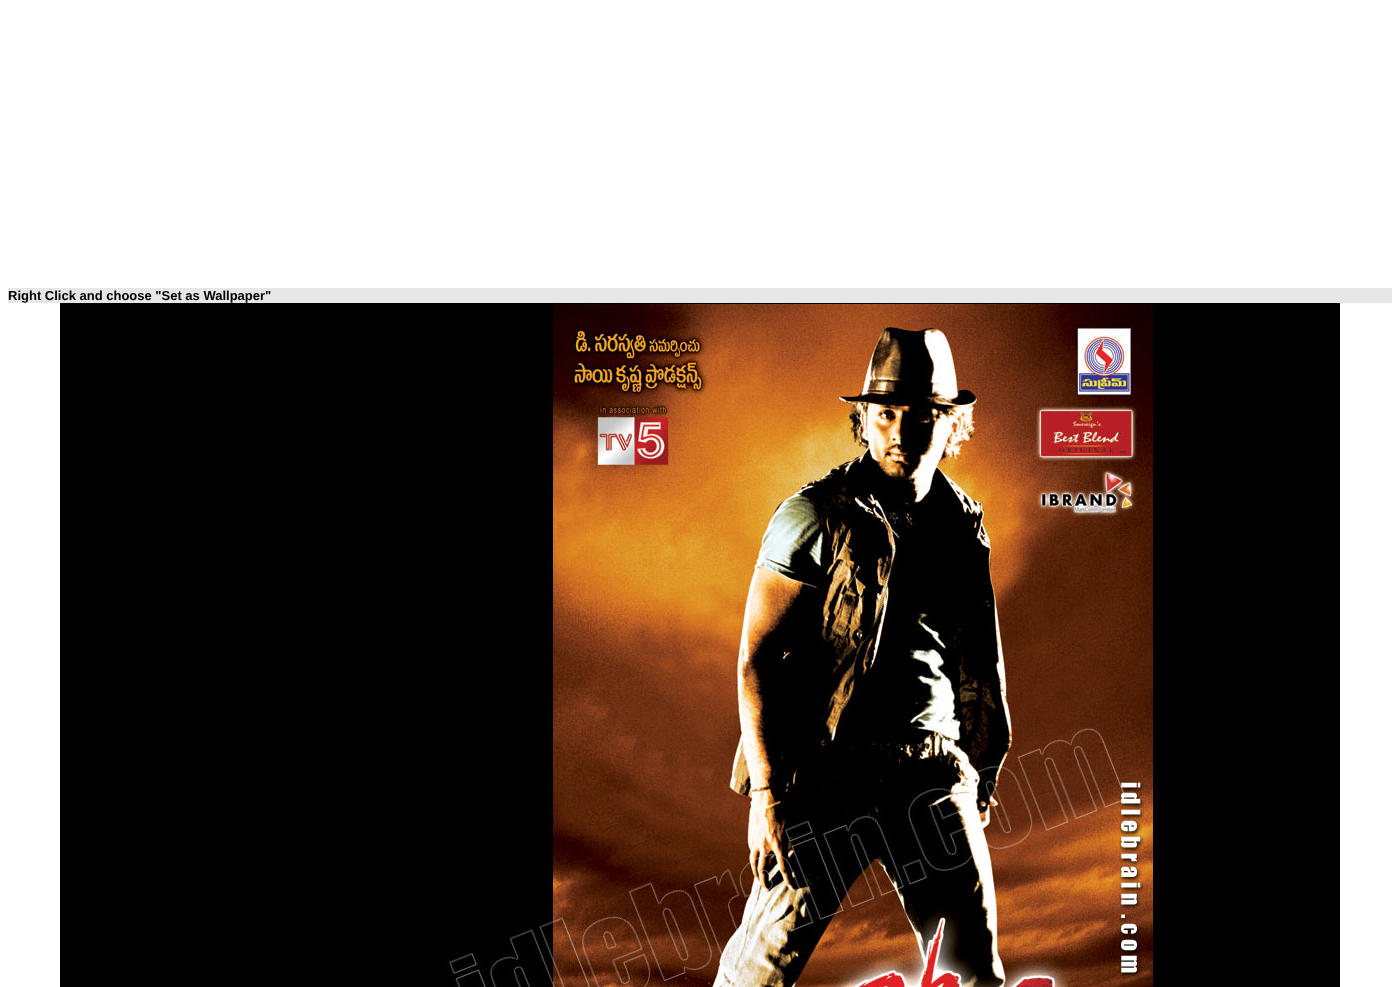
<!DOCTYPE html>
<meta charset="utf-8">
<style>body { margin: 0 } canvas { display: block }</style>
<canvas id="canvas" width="1400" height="987"></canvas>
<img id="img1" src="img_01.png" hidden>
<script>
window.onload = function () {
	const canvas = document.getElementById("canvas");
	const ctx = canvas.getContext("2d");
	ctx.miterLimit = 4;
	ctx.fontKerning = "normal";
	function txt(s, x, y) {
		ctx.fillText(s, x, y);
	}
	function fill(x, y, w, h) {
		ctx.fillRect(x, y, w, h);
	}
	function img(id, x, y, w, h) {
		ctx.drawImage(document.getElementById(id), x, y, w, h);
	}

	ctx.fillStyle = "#FFFFFF";
	fill(0, 0, 1400, 987);
	ctx.fillStyle = "#E7E7E7";
	fill(8, 288, 1384, 15);
	img("img1", 60, 303, 1280, 684);
	ctx.font = "bold 13px Liberation Sans";
	ctx.fillStyle = "#000000";
	txt("Right Click and choose \"Set as Wallpaper\"", 8, 300);
};
</script>
